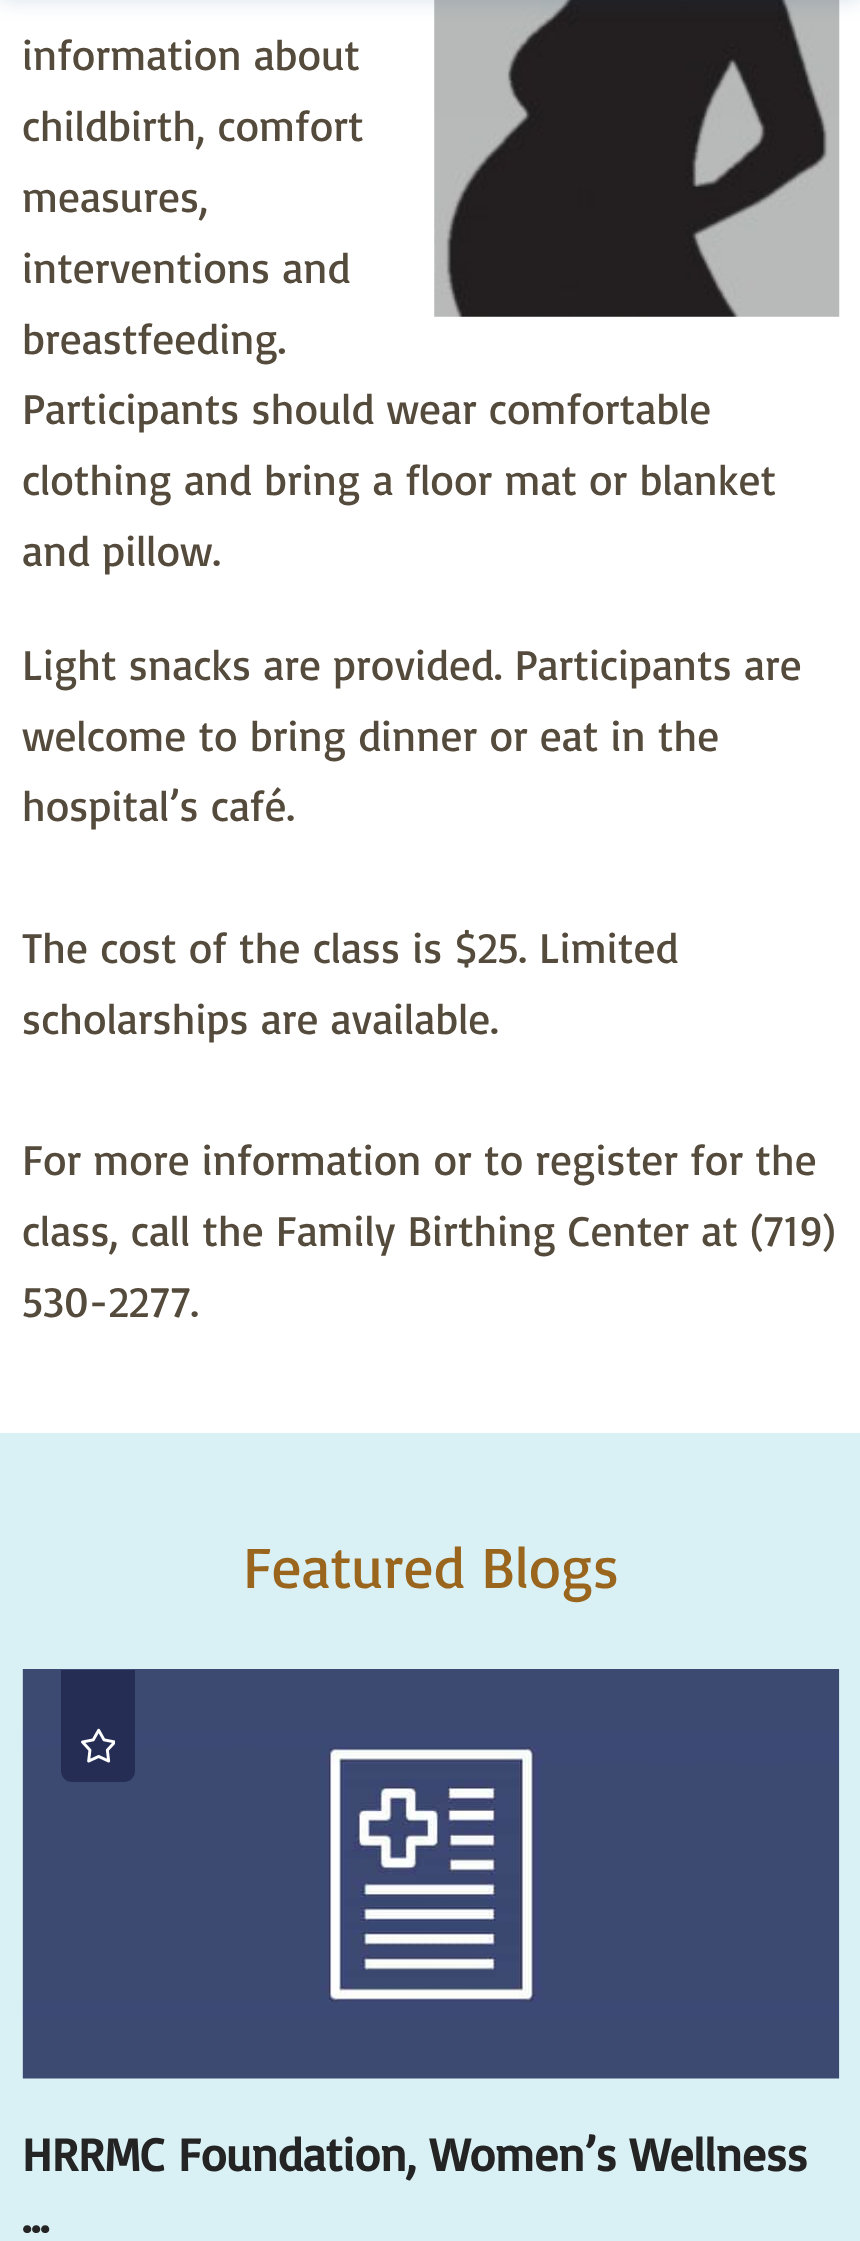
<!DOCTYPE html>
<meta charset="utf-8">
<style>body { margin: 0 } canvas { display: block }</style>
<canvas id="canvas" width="860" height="2241"></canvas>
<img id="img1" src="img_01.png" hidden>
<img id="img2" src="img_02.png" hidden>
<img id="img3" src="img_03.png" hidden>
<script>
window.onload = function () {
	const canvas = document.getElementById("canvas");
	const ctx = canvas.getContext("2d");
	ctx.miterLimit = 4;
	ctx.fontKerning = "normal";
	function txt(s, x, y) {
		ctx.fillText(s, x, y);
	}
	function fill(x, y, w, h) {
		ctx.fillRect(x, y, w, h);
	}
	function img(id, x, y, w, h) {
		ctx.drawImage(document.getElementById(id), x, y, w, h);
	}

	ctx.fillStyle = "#FFFFFF";
	fill(0, 0, 860, 2241);
	img("img1", 434, 0, 406, 317);
	ctx.fillStyle = "rgba(0, 70, 127, 0.15)";
	ctx.filter = "blur(11px)";
	ctx.beginPath();
	ctx.rect(0, -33, 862, 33);
	ctx.fill();
	ctx.filter = "none";
	ctx.fillStyle = "#D9F1F5";
	fill(0, 1433, 860, 808);
	img("img2", 22, 1669, 818, 410);
	ctx.fillStyle = "#252D54";
	ctx.beginPath();
	ctx.roundRect(61, 1670, 74, 112, [0, 0, 11, 11]);
	ctx.fill();
	img("img3", 81, 1728, 34, 35);
	ctx.font = "43.2px Basic";
	ctx.fillStyle = "#554B3C";
	txt("information about", 22, 70);
	txt("childbirth, comfort", 22, 141);
	txt("measures,", 22, 212);
	txt("interventions and", 22, 283);
	txt("breastfeeding.", 22, 354);
	txt("Participants should wear comfortable", 22, 424);
	txt("clothing and bring a floor mat or blanket", 22, 495);
	txt("and pillow.", 22, 566);
	txt("Light snacks are provided. Participants are", 22, 680);
	txt("welcome to bring dinner or eat in the", 22, 751);
	txt("hospital’s café.", 22, 821);
	txt("The cost of the class is $25. Limited", 22, 963);
	txt("scholarships are available.", 22, 1034);
	txt("For more information or to register for the", 22, 1175);
	txt("class, call the Family Birthing Center at (719)", 22, 1246);
	txt("530-2277.", 22, 1317);
	ctx.font = "59px Basic";
	ctx.fillStyle = "#9A661E";
	txt("Featured Blogs", 243, 1588);
	ctx.font = "bold 47px Basic";
	ctx.fillStyle = "#242424";
	txt("HRRMC Foundation, Women’s Wellness", 22, 2171);
	txt("...", 22, 2233);
};
</script>
